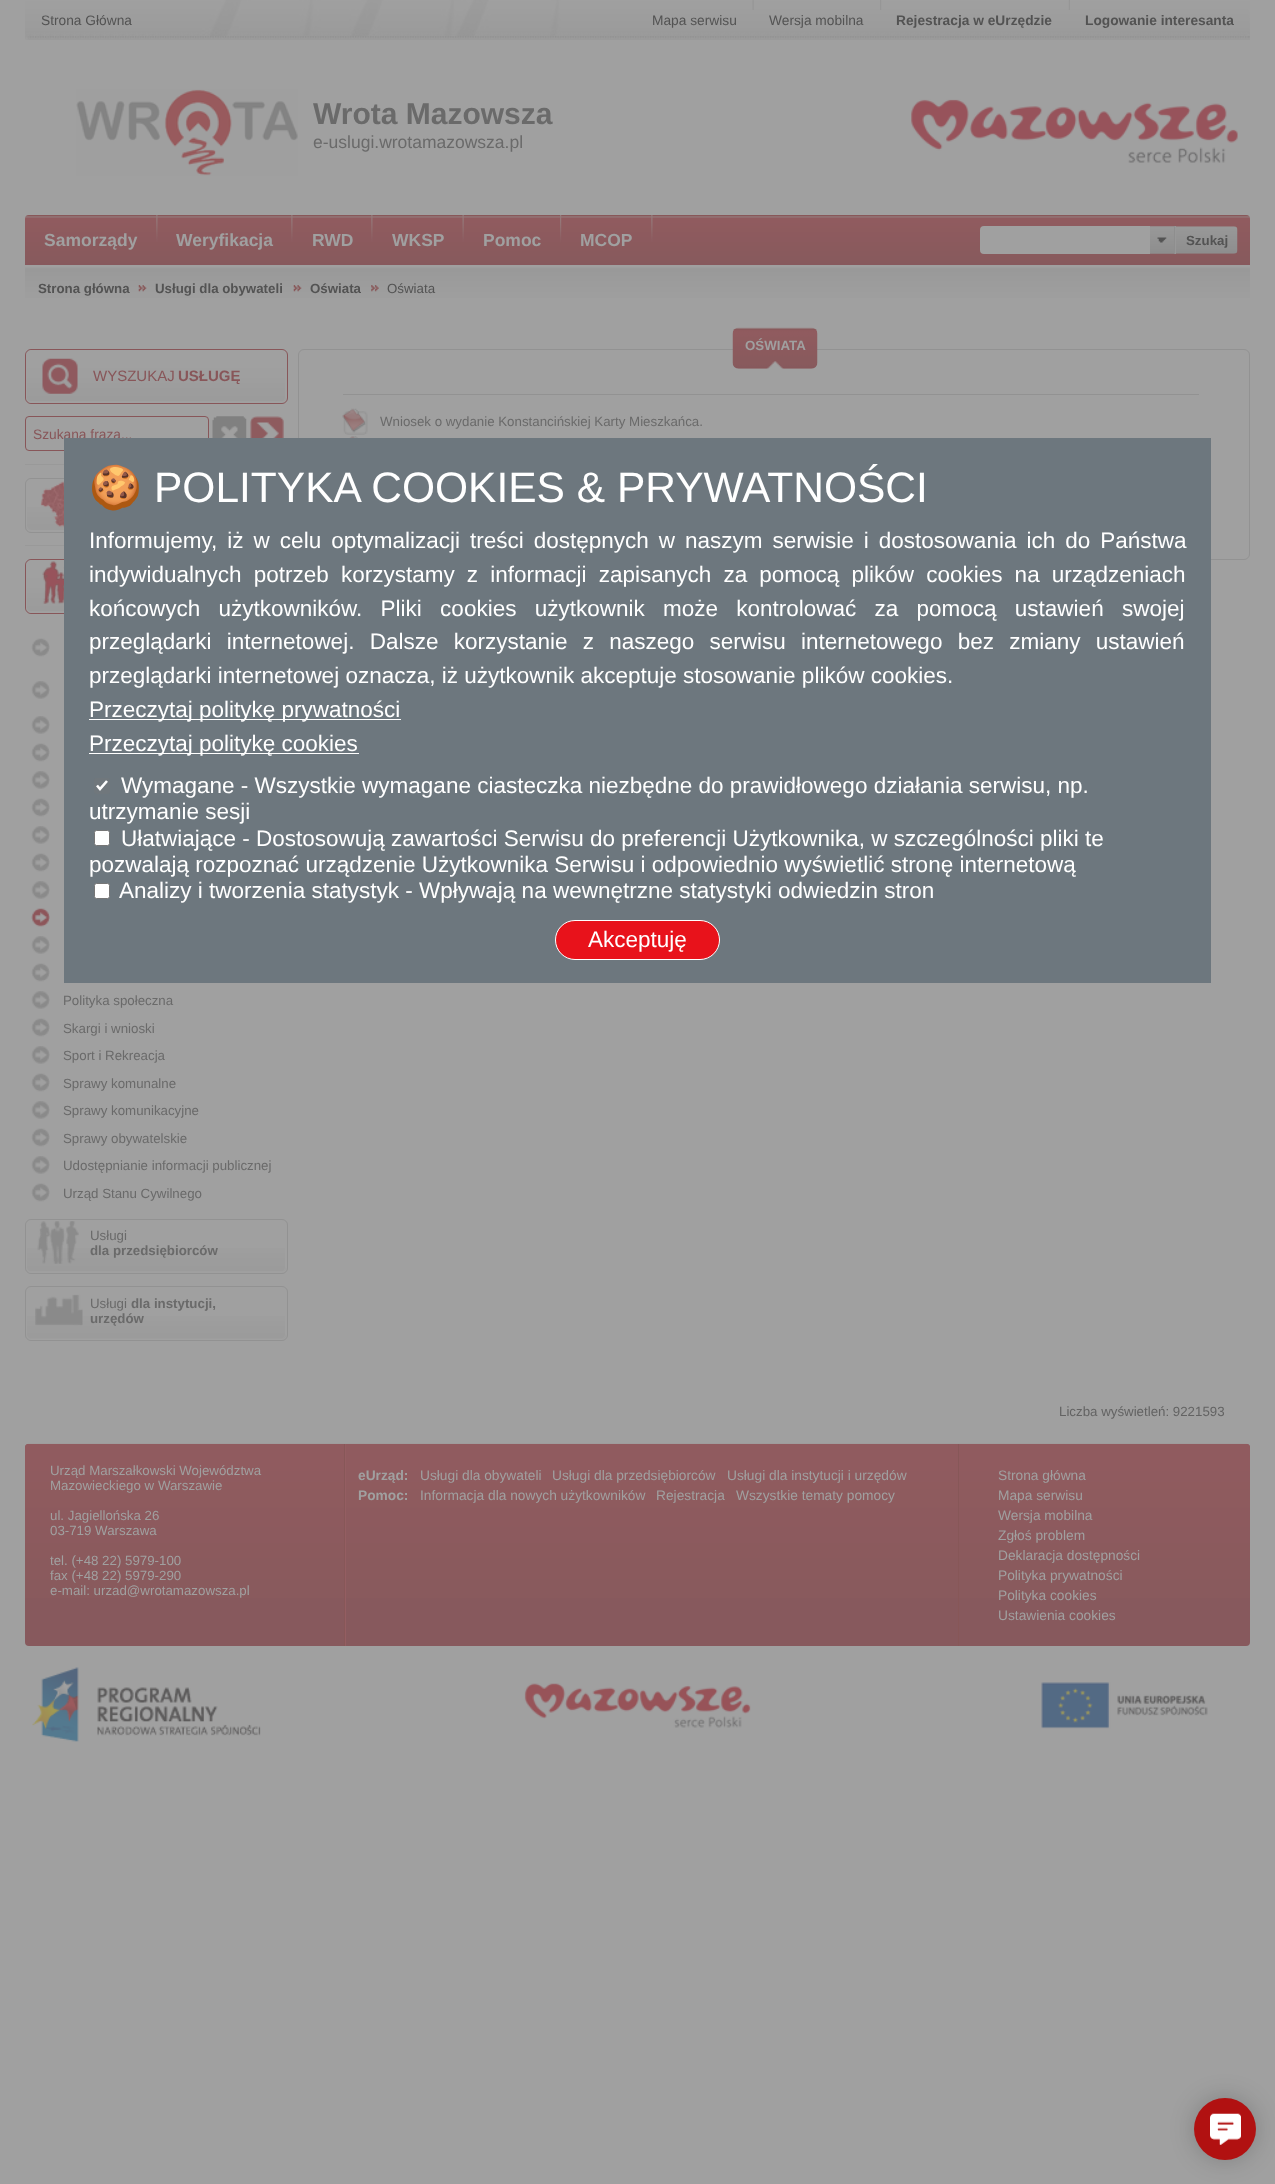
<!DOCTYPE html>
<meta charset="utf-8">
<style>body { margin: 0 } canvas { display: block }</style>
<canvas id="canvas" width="1275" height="2184"></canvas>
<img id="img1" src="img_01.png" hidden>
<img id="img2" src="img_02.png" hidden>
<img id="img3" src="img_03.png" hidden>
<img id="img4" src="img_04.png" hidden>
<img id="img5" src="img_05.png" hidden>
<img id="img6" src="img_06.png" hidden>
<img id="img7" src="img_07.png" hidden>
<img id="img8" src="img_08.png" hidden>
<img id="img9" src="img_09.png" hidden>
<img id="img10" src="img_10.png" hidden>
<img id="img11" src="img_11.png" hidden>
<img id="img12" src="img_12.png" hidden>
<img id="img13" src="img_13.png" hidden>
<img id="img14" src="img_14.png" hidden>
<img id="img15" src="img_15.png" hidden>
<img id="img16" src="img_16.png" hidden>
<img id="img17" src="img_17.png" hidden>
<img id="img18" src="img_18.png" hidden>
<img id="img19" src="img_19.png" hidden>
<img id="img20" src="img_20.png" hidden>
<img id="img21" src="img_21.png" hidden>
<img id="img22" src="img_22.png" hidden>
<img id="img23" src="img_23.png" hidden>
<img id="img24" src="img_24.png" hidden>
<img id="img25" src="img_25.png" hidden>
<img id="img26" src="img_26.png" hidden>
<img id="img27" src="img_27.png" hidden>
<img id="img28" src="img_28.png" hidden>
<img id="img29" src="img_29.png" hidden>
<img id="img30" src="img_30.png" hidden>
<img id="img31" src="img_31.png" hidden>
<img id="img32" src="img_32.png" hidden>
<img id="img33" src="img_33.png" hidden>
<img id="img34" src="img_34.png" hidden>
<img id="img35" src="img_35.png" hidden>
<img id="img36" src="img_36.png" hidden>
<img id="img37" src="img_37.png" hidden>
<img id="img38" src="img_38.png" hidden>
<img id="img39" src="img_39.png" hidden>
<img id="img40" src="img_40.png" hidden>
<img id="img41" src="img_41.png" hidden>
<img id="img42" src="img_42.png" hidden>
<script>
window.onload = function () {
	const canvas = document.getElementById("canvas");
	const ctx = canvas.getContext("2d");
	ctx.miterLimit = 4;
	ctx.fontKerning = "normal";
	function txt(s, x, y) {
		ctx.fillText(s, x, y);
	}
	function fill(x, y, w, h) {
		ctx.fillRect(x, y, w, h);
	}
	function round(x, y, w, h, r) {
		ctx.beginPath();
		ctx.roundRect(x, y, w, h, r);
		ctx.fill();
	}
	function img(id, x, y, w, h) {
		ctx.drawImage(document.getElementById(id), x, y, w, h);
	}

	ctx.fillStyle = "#A0A0A0";
	fill(0, 0, 1275, 2184);
	img("img1", 25, 0, 1225, 40);
	img("img2", 752, 0, 2, 10);
	img("img3", 880, 0, 2, 10);
	img("img4", 1068, 0, 2, 10);
	img("img5", 76, 89, 222, 87);
	img("img6", 911, 99, 327, 64);
	img("img7", 25, 215, 950, 50);
	img("img8", 156, 215, 2, 27);
	img("img8", 291, 215, 2, 27);
	img("img8", 371, 215, 2, 27);
	img("img9", 462, 215, 2, 27);
	img("img10", 560, 215, 2, 28);
	img("img8", 651, 215, 2, 27);
	img("img11", 975, 215, 275, 50);
	ctx.beginPath();
	ctx.roundRect(980, 226, 170, 28, [4, 0, 0, 4]);
	ctx.fill();
	img("img12", 1150, 226, 24, 28);
	ctx.fillStyle = "#8E8E8E";
	fill(1174, 226, 1, 28);
	img("img13", 1157, 237, 10, 6);
	img("img14", 1176, 226, 62, 28);
	ctx.fillStyle = "#989898";
	fill(1175, 226, 1, 28);
	img("img15", 25, 267, 1225, 31);
	img("img16", 138, 285, 9, 7);
	img("img17", 293, 285, 9, 7);
	img("img18", 371, 285, 8, 7);
	ctx.beginPath();
	ctx.roundRect(298.5, 349.5, 951, 210, 5.5);
	ctx.strokeStyle = "#929292";
	ctx.stroke();
	img("img19", 732, 327, 86, 42);
	img("img20", 766, 361, 18, 8);
	ctx.fillStyle = "#999999";
	fill(25, 464, 39, 1);
	ctx.beginPath();
	ctx.roundRect(25.5, 349.5, 262, 54, 5.5);
	ctx.strokeStyle = "#885659";
	ctx.stroke();
	img("img21", 26, 353, 260, 49);
	ctx.beginPath();
	ctx.roundRect(26.5, 350.5, 259, 52, 5.5);
	ctx.strokeStyle = "#A0A0A0";
	ctx.stroke();
	img("img22", 42, 358, 36, 36);
	ctx.beginPath();
	ctx.roundRect(25.5, 416.5, 183, 34, 3.5);
	ctx.strokeStyle = "#885659";
	ctx.stroke();
	img("img23", 212, 416, 35, 22);
	img("img24", 250, 416, 34, 22);
	fill(25, 545, 39, 1);
	ctx.beginPath();
	ctx.roundRect(25.5, 478.5, 262, 54, 5.5);
	ctx.strokeStyle = "#929292";
	ctx.stroke();
	img("img25", 26, 507, 38, 23);
	ctx.beginPath();
	ctx.roundRect(26.5, 479.5, 259, 51, 5.5);
	ctx.strokeStyle = "#A0A0A0";
	ctx.stroke();
	img("img26", 40, 481, 24, 47);
	ctx.beginPath();
	ctx.roundRect(25.5, 559.5, 262, 54, 5.5);
	ctx.strokeStyle = "#885659";
	ctx.stroke();
	img("img27", 26, 563, 38, 49);
	ctx.beginPath();
	ctx.roundRect(26.5, 560.5, 259, 52, 5.5);
	ctx.strokeStyle = "#A0A0A0";
	ctx.stroke();
	img("img28", 42, 561, 22, 43);
	img("img29", 31, 638, 19, 19);
	img("img30", 31, 681, 19, 18);
	img("img30", 31, 716, 19, 18);
	img("img29", 31, 743, 19, 19);
	img("img30", 31, 771, 19, 18);
	img("img29", 31, 798, 19, 19);
	img("img30", 31, 826, 19, 18);
	img("img29", 31, 853, 19, 19);
	img("img30", 31, 881, 19, 18);
	img("img31", 31, 908, 19, 19);
	img("img30", 31, 936, 19, 18);
	img("img29", 31, 963, 19, 19);
	img("img30", 31, 991, 19, 18);
	img("img29", 31, 1018, 19, 19);
	img("img30", 31, 1046, 19, 18);
	img("img29", 31, 1073, 19, 19);
	img("img30", 31, 1101, 19, 18);
	img("img29", 31, 1128, 19, 19);
	img("img30", 31, 1156, 19, 18);
	img("img29", 31, 1183, 19, 19);
	ctx.beginPath();
	ctx.roundRect(25.5, 1219.5, 262, 54, 5.5);
	ctx.strokeStyle = "#929292";
	ctx.stroke();
	img("img32", 26, 1248, 260, 24);
	ctx.beginPath();
	ctx.roundRect(26.5, 1220.5, 259, 52, 5.5);
	ctx.strokeStyle = "#A0A0A0";
	ctx.stroke();
	img("img33", 37, 1221, 42, 43);
	ctx.beginPath();
	ctx.roundRect(25.5, 1286.5, 262, 54, 5.5);
	ctx.strokeStyle = "#929292";
	ctx.stroke();
	img("img34", 26, 1316, 260, 23);
	ctx.beginPath();
	ctx.roundRect(26.5, 1288.5, 259, 51, 5.5);
	ctx.strokeStyle = "#A0A0A0";
	ctx.stroke();
	img("img35", 35, 1294, 48, 32);
	ctx.fillStyle = "#929292";
	fill(343, 394, 856, 1);
	img("img36", 342, 408, 26, 27);
	img("img37", 349, 436, 9, 2);
	ctx.fillStyle = "#87595D";
	round(25, 1444, 1225, 202, 4);
	img("img38", 25, 1443, 1225, 155);
	ctx.fillStyle = "#875758";
	fill(344, 1444, 1, 202);
	fill(958, 1444, 1, 202);
	ctx.fillStyle = "#945E62";
	fill(345, 1444, 1, 202);
	img("img39", 32, 1667, 229, 75);
	img("img40", 524, 1683, 227, 45);
	img("img41", 1041, 1682, 167, 47);
	ctx.fillStyle = "rgba(0, 0, 0, 0.2)";
	ctx.filter = "blur(12.5px)";
	ctx.beginPath();
	ctx.roundRect(1194, 2098, 62, 62, 31);
	ctx.fill();
	ctx.filter = "none";
	ctx.fillStyle = "#B11111";
	ctx.beginPath();
	ctx.arc(1225, 2129, 31, 0, Math.PI * 2);
	ctx.fill();
	img("img42", 1210, 2113, 31, 32);
	ctx.font = "13.75px Liberation Sans";
	ctx.fillStyle = "#535353";
	txt("Strona Główna", 41, 25);
	txt("Mapa serwisu", 652, 25);
	txt("Wersja mobilna", 769, 25);
	ctx.font = "bold 13.75px Liberation Sans";
	txt("Rejestracja w eUrzędzie", 896, 25);
	txt("Logowanie interesanta", 1085, 25);
	ctx.font = "bold 30px Liberation Sans";
	ctx.fillStyle = "#6A6A6A";
	txt("Wrota Mazowsza", 313, 124);
	ctx.font = "17.5px Liberation Sans";
	txt("e-uslugi.wrotamazowsza.pl", 313, 148);
	ctx.font = "bold 17.5px Liberation Sans";
	ctx.fillStyle = "#A0A0A0";
	txt("Samorządy", 44, 246);
	txt("Weryfikacja", 176, 246);
	txt("RWD", 312, 246);
	txt("WKSP", 392, 246);
	txt("Pomoc", 483, 246);
	txt("MCOP", 580, 246);
	ctx.font = "bold 13.3px Liberation Sans";
	ctx.fillStyle = "#535353";
	txt("Szukaj", 1186, 245);
	txt("Strona główna", 38, 293);
	txt("Usługi dla obywateli", 155, 293);
	txt("Oświata", 310, 293);
	ctx.font = "13.3px Liberation Sans";
	txt("Oświata", 387, 293);
	ctx.font = "bold 13.3px Liberation Sans";
	ctx.fillStyle = "#A0A0A0";
	txt("OŚWIATA", 745, 350);
	ctx.font = "15px Liberation Sans";
	ctx.fillStyle = "#885659";
	txt("WYSZUKAJ", 93, 381);
	ctx.font = "bold 15px Liberation Sans";
	txt("USŁUGĘ", 178, 381);
	ctx.font = "13.75px Liberation Sans";
	txt("Szukana fraza...", 33, 439);
	ctx.font = "13.3px Liberation Sans";
	ctx.fillStyle = "#6A6A6A";
	txt("Polityka społeczna", 63, 1005);
	txt("Skargi i wnioski", 63, 1033);
	txt("Sport i Rekreacja", 63, 1060);
	txt("Sprawy komunalne", 63, 1088);
	txt("Sprawy komunikacyjne", 63, 1115);
	txt("Sprawy obywatelskie", 63, 1143);
	txt("Udostępnianie informacji publicznej", 63, 1170);
	txt("Urząd Stanu Cywilnego", 63, 1198);
	txt("Usługi", 90, 1240);
	ctx.font = "bold 13.3px Liberation Sans";
	txt("dla przedsiębiorców", 90, 1255);
	ctx.font = "13.3px Liberation Sans";
	txt("Usługi", 90, 1308);
	ctx.font = "bold 13.3px Liberation Sans";
	txt("dla instytucji,", 131, 1308);
	txt("urzędów", 90, 1323);
	ctx.font = "13.3px Liberation Sans";
	txt("Wniosek o wydanie Konstancińskiej Karty Mieszkańca.", 380, 426);
	ctx.fillStyle = "#636363";
	txt("Liczba wyświetleń: 9221593", 1059, 1416);
	ctx.fillStyle = "#A0A0A0";
	txt("Urząd Marszałkowski Województwa", 50, 1475);
	txt("Mazowieckiego w Warszawie", 50, 1490);
	txt("ul. Jagiellońska 26", 50, 1520);
	txt("03-719 Warszawa", 50, 1535);
	txt("tel. (+48 22) 5979-100", 50, 1565);
	txt("fax (+48 22) 5979-290", 50, 1580);
	txt("e-mail: urzad@wrotamazowsza.pl", 50, 1595);
	ctx.font = "bold 13.75px Liberation Sans";
	txt("eUrząd:", 358, 1480);
	ctx.font = "13.75px Liberation Sans";
	txt("Usługi dla obywateli", 420, 1480);
	txt("Usługi dla przedsiębiorców", 552, 1480);
	txt("Usługi dla instytucji i urzędów", 727, 1480);
	ctx.font = "bold 13.75px Liberation Sans";
	txt("Pomoc:", 358, 1500);
	ctx.font = "13.75px Liberation Sans";
	txt("Informacja dla nowych użytkowników", 420, 1500);
	txt("Rejestracja", 656, 1500);
	txt("Wszystkie tematy pomocy", 736, 1500);
	txt("Strona główna", 998, 1480);
	txt("Mapa serwisu", 998, 1500);
	txt("Wersja mobilna", 998, 1520);
	txt("Zgłoś problem", 998, 1540);
	txt("Deklaracja dostępności", 998, 1560);
	txt("Polityka prywatności", 998, 1580);
	txt("Polityka cookies", 998, 1600);
	txt("Ustawienia cookies", 998, 1620);
	ctx.fillStyle = "#6D777E";
	fill(64, 438, 1147, 545);
	ctx.font = "42.5px Noto Color Emoji";
	ctx.fillStyle = "#FFFFFF";
	txt("🍪", 89, 502);
	ctx.font = "42.5px Liberation Sans";
	txt("POLITYKA COOKIES & PRYWATNOŚCI", 154, 502);
	ctx.wordSpacing = "3.75px";
	ctx.font = "22.5px Liberation Sans";
	txt("Informujemy, iż w celu optymalizacji treści dostępnych w naszym serwisie i dostosowania ich do Państwa", 89, 548);
	ctx.wordSpacing = "5.9px";
	txt("indywidualnych potrzeb korzystamy z informacji zapisanych za pomocą plików cookies na urządzeniach", 89, 582);
	ctx.wordSpacing = "12px";
	txt("końcowych użytkowników. Pliki cookies użytkownik może kontrolować za pomocą ustawień swojej", 89, 616);
	ctx.wordSpacing = "9px";
	txt("przeglądarki internetowej. Dalsze korzystanie z naszego serwisu internetowego bez zmiany ustawień", 89, 649);
	ctx.wordSpacing = "0px";
	txt("przeglądarki internetowej oznacza, iż użytkownik akceptuje stosowanie plików cookies.", 89, 683);
	fill(89, 719, 312, 1);
	txt("Przeczytaj politykę prywatności", 89, 717);
	fill(89, 753, 270, 1);
	txt("Przeczytaj politykę cookies", 89, 751);
	ctx.fillStyle = "#70777C";
	round(94, 778, 16, 16, 2.5);
	ctx.beginPath();
	ctx.moveTo(97, 785.5);
	ctx.lineTo(100, 789);
	ctx.lineTo(107, 781);
	ctx.strokeStyle = "#FFFFFF";
	ctx.lineWidth = 2.6;
	ctx.stroke();
	ctx.fillStyle = "#FFFFFF";
	txt("Wymagane - Wszystkie wymagane ciasteczka niezbędne do prawidłowego działania serwisu, np.", 121, 793);
	txt("utrzymanie sesji", 89, 819);
	ctx.beginPath();
	ctx.roundRect(94.5, 830.5, 15, 15, 2);
	ctx.fill();
	ctx.strokeStyle = "#767676";
	ctx.lineWidth = 1;
	ctx.stroke();
	txt("Ułatwiające - Dostosowują zawartości Serwisu do preferencji Użytkownika, w szczególności pliki te", 121, 846);
	txt("pozwalają rozpoznać urządzenie Użytkownika Serwisu i odpowiednio wyświetlić stronę internetową", 89, 872);
	ctx.beginPath();
	ctx.roundRect(94.5, 883.5, 15, 15, 2);
	ctx.fill();
	ctx.stroke();
	txt("Analizy i tworzenia statystyk - Wpływają na wewnętrzne statystyki odwiedzin stron", 119, 898);
	ctx.fillStyle = "#E8121B";
	ctx.beginPath();
	ctx.roundRect(555.5, 920.5, 164, 39, 19.5);
	ctx.fill();
	ctx.strokeStyle = "#FFFFFF";
	ctx.stroke();
	ctx.fillStyle = "#FFFFFF";
	txt("Akceptuję", 588, 947);
};
</script>
